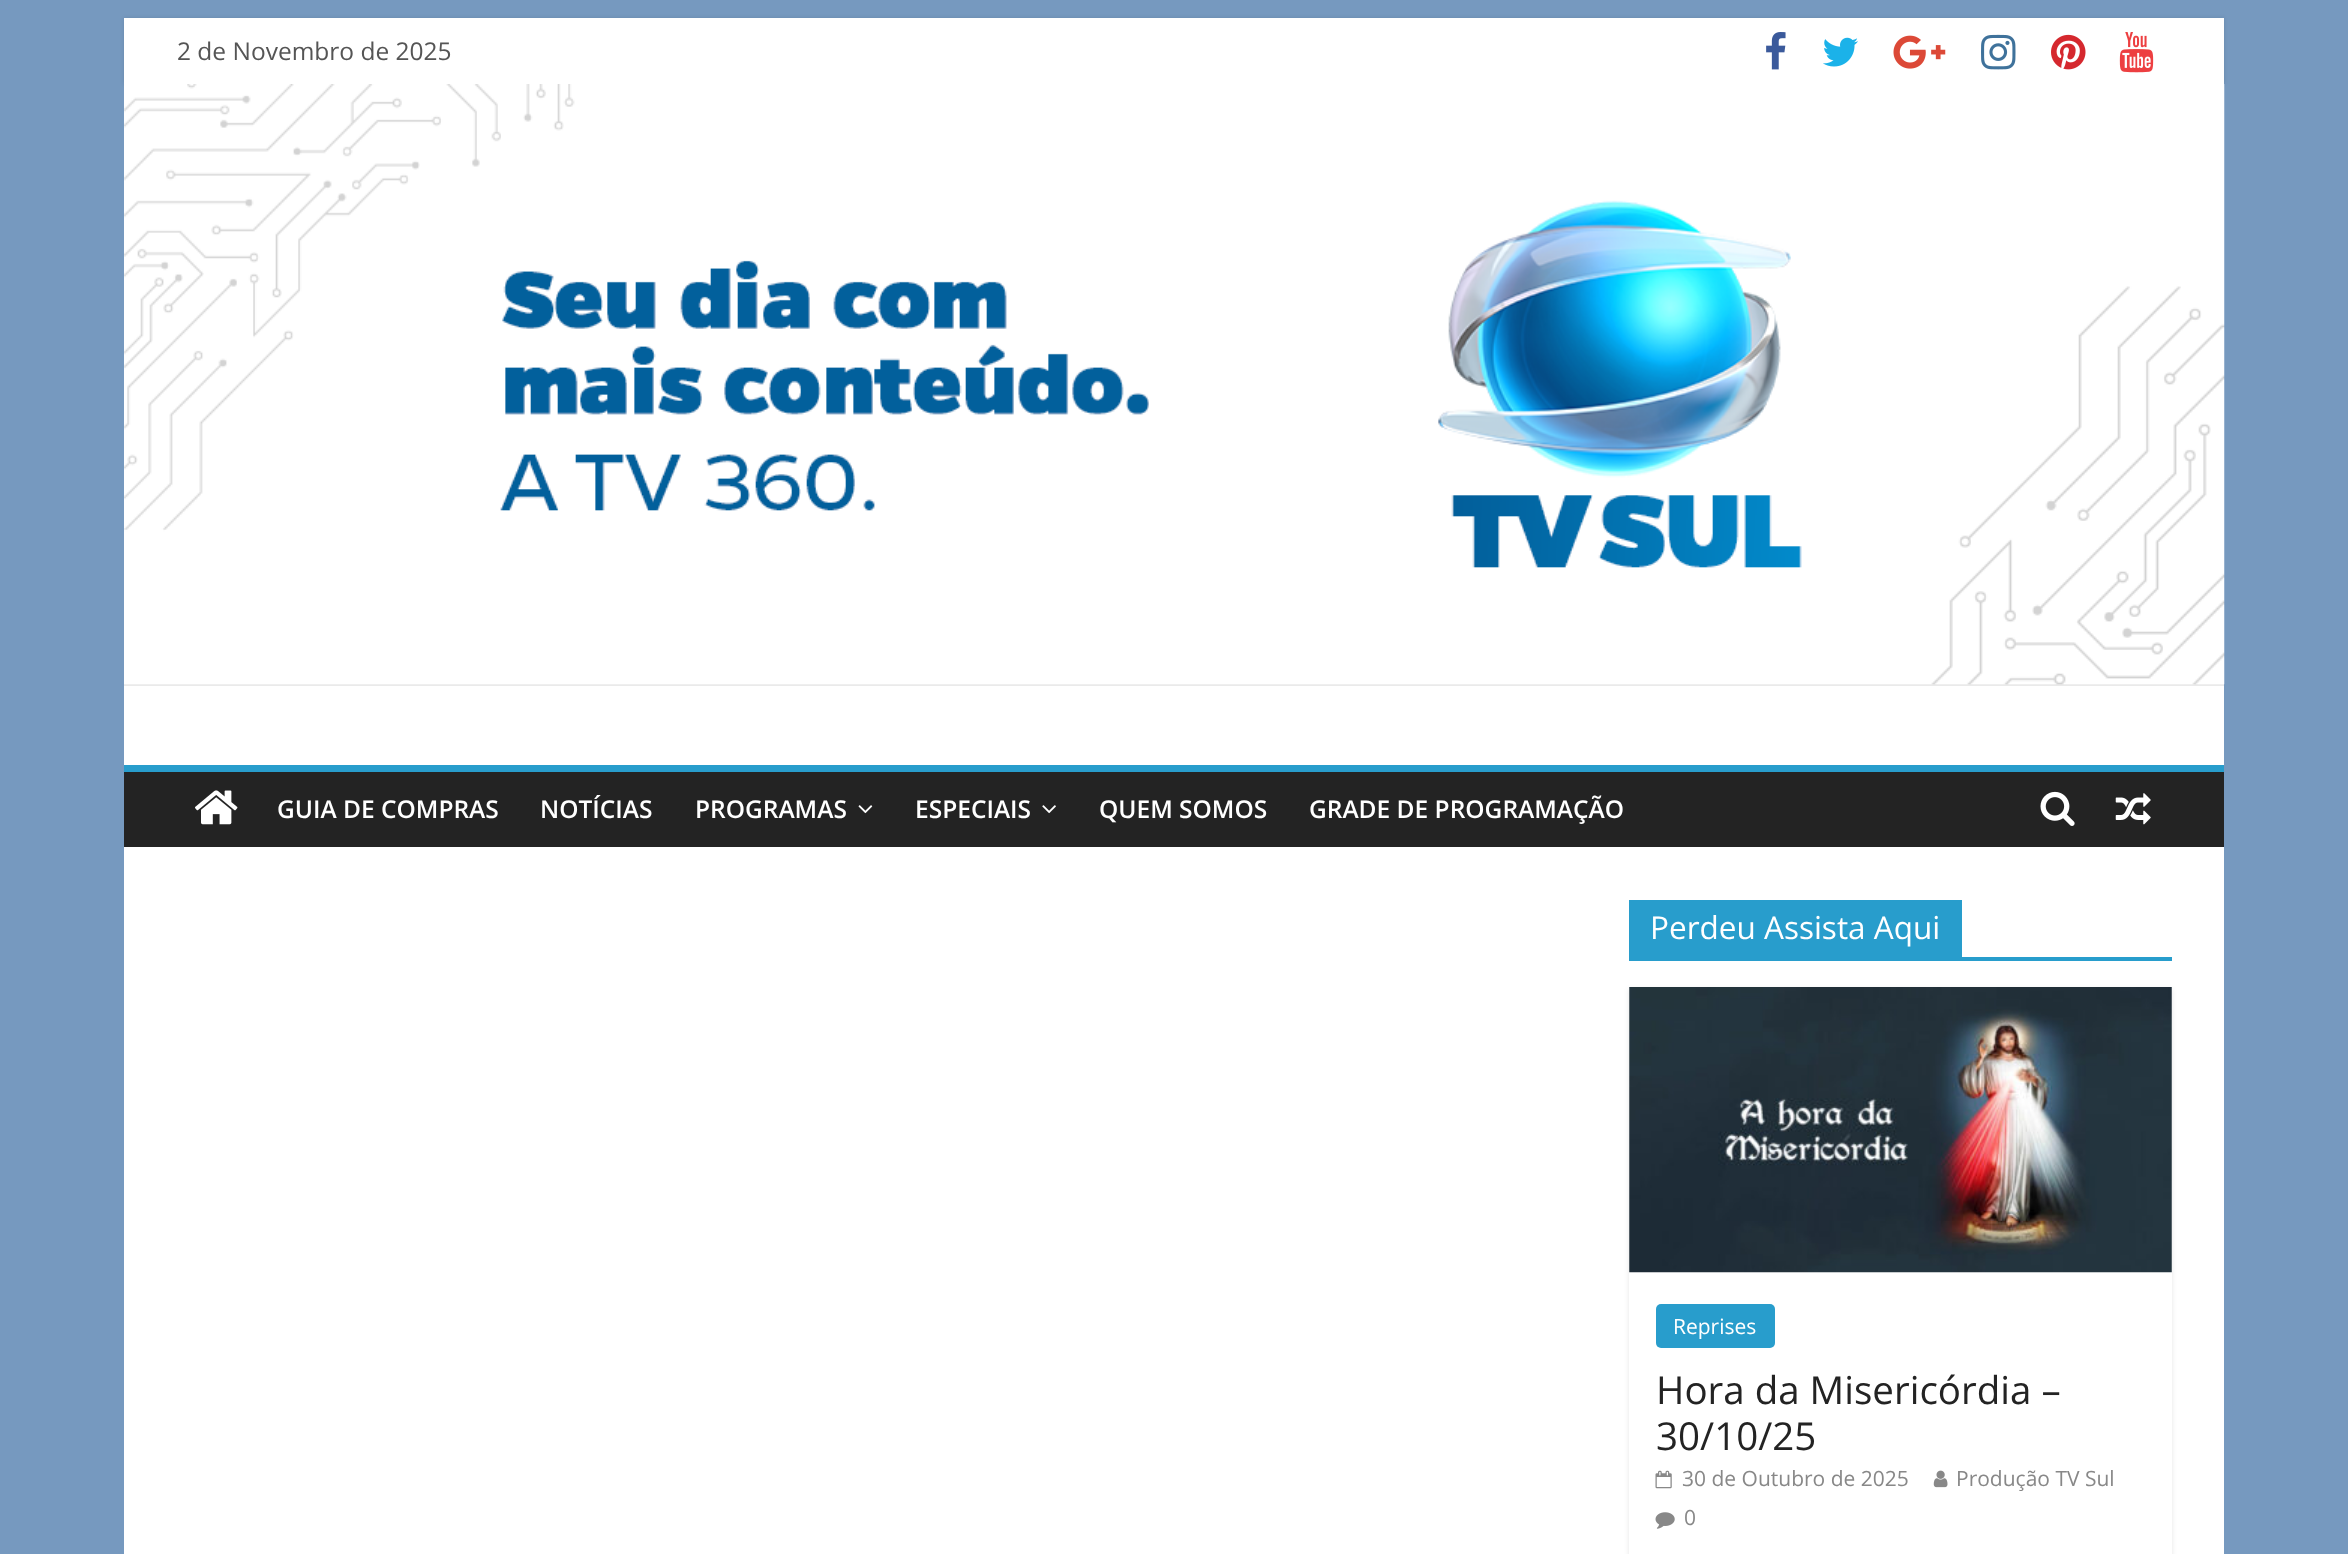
<!DOCTYPE html>
<meta charset="utf-8">
<style>body { margin: 0 } canvas { display: block }</style>
<canvas id="canvas" width="2348" height="1554"></canvas>
<img id="img1" src="img_01.png" hidden>
<img id="img2" src="img_02.png" hidden>
<img id="img3" src="img_03.png" hidden>
<img id="img4" src="img_04.png" hidden>
<img id="img5" src="img_05.png" hidden>
<img id="img6" src="img_06.png" hidden>
<img id="img7" src="img_07.png" hidden>
<img id="img8" src="img_08.png" hidden>
<img id="img9" src="img_09.png" hidden>
<img id="img10" src="img_10.png" hidden>
<img id="img11" src="img_11.png" hidden>
<img id="img12" src="img_12.png" hidden>
<img id="img13" src="img_13.png" hidden>
<img id="img14" src="img_14.png" hidden>
<img id="img15" src="img_15.png" hidden>
<img id="img16" src="img_16.png" hidden>
<script>
window.onload = function () {
	const canvas = document.getElementById("canvas");
	const ctx = canvas.getContext("2d");
	ctx.miterLimit = 4;
	ctx.fontKerning = "normal";
	function txt(s, x, y) {
		ctx.fillText(s, x, y);
	}
	function fill(x, y, w, h) {
		ctx.fillRect(x, y, w, h);
	}
	function round(x, y, w, h, r) {
		ctx.beginPath();
		ctx.roundRect(x, y, w, h, r);
		ctx.fill();
	}
	function img(id, x, y, w, h) {
		ctx.drawImage(document.getElementById(id), x, y, w, h);
	}

	ctx.fillStyle = "#7699BF";
	fill(0, 0, 2348, 1554);
	ctx.fillStyle = "#FFFFFF";
	fill(124, 84, 2100, 681);
	ctx.fillStyle = "rgba(0, 0, 0, 0.1)";
	ctx.filter = "blur(2px)";
	ctx.beginPath();
	ctx.rect(124, 18, 2100, 66);
	ctx.fill();
	ctx.filter = "none";
	ctx.fillStyle = "#FFFFFF";
	fill(124, 18, 2100, 66);
	img("img1", 1766, 32, 20, 38);
	img("img2", 1823, 37, 35, 30);
	img("img3", 1893, 35, 53, 34);
	img("img4", 1981, 34, 35, 36);
	img("img5", 2051, 34, 35, 36);
	img("img6", 2119, 32, 35, 41);
	ctx.fillStyle = "#EAEAEA";
	fill(124, 684, 2100, 2);
	img("img7", 124, 84, 2101, 601);
	ctx.fillStyle = "#232323";
	fill(124, 772, 2100, 75);
	ctx.fillStyle = "#289DCC";
	fill(124, 765, 2100, 7);
	img("img8", 195, 790, 43, 35);
	img("img9", 858, 805, 15, 9);
	img("img10", 1042, 805, 14, 9);
	img("img11", 2040, 791, 35, 35);
	img("img12", 2115, 793, 36, 32);
	ctx.fillStyle = "#FFFFFF";
	fill(124, 847, 2100, 707);
	ctx.fillStyle = "#289DCC";
	fill(1629, 957, 543, 4);
	fill(1629, 900, 333, 57);
	ctx.fillStyle = "rgba(0, 0, 0, 0.1)";
	ctx.filter = "blur(2.5px)";
	ctx.beginPath();
	ctx.rect(1629, 989, 543, 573);
	ctx.fill();
	ctx.filter = "none";
	ctx.fillStyle = "#FFFFFF";
	fill(1629, 987, 543, 567);
	img("img13", 1629, 987, 543, 286);
	ctx.fillStyle = "#289DCC";
	round(1656, 1304, 119, 44, 5);
	img("img14", 1655, 1470, 17, 19);
	img("img15", 1933, 1470, 15, 18);
	img("img16", 1655, 1512, 20, 17);
	ctx.font = "24.5px Open Sans";
	ctx.fillStyle = "#555555";
	txt("2 de Novembro de 2025", 177, 60);
	ctx.font = "600 24.5px Open Sans";
	ctx.fillStyle = "#FFFFFF";
	txt("GUIA DE COMPRAS", 277, 818);
	txt("NOTÍCIAS", 540, 818);
	txt("PROGRAMAS", 695, 818);
	txt("ESPECIAIS", 915, 818);
	txt("QUEM SOMOS", 1099, 818);
	txt("GRADE DE PROGRAMAÇÃO", 1309, 818);
	ctx.font = "31.5px Open Sans";
	txt("Perdeu Assista Aqui", 1650, 939);
	ctx.font = "21px Open Sans";
	txt("Reprises", 1673, 1334);
	ctx.font = "38.5px Open Sans";
	ctx.fillStyle = "#232323";
	txt("Hora da Misericórdia –", 1656, 1404);
	txt("30/10/25", 1656, 1450);
	ctx.font = "21px Open Sans";
	ctx.fillStyle = "#888888";
	txt("30 de Outubro de 2025", 1682, 1486);
	txt("Produção TV Sul", 1956, 1486);
	txt("0", 1684, 1525);
};
</script>
